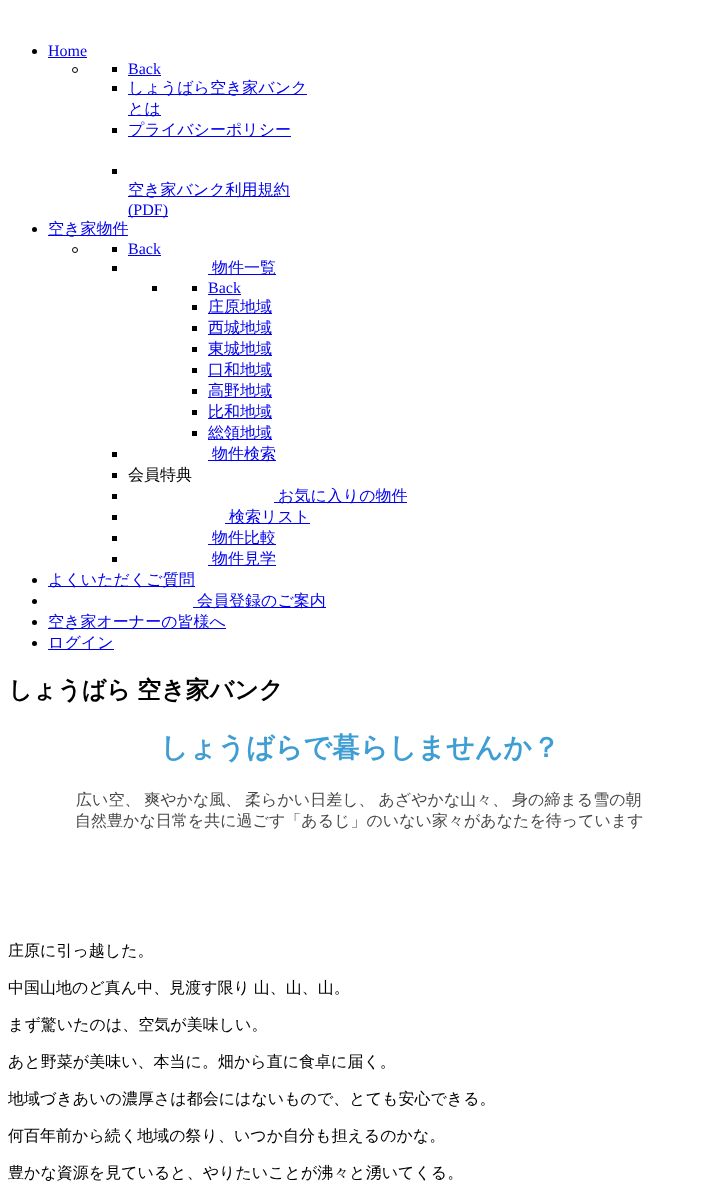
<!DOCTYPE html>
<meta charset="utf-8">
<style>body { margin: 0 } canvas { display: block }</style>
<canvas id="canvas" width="719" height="1192"></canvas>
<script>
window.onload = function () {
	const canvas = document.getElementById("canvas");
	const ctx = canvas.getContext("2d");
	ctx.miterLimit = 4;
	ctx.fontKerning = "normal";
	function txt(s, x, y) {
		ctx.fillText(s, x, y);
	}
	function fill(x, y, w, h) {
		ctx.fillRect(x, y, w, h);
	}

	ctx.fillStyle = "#FFFFFF";
	fill(0, 0, 719, 1192);
	ctx.fillStyle = "#000000";
	ctx.beginPath();
	ctx.arc(34.5, 51.5, 2.5, 0, Math.PI * 2);
	ctx.fill();
	ctx.fillStyle = "#0000EE";
	fill(48, 57, 39, 1);
	ctx.beginPath();
	ctx.arc(75, 70, 2.5, 0, Math.PI * 2);
	ctx.strokeStyle = "#000000";
	ctx.stroke();
	ctx.fillStyle = "#000000";
	fill(112, 67, 5, 5);
	ctx.fillStyle = "#0000EE";
	fill(128, 75, 33, 1);
	ctx.fillStyle = "#000000";
	fill(112, 86, 5, 5);
	ctx.fillStyle = "#0000EE";
	fill(128, 94, 179, 1);
	fill(128, 115, 33, 1);
	ctx.fillStyle = "#000000";
	fill(112, 128, 5, 5);
	ctx.fillStyle = "#0000EE";
	fill(128, 136, 163, 1);
	ctx.fillStyle = "#000000";
	fill(112, 169, 5, 5);
	ctx.fillStyle = "#0000EE";
	fill(128, 196, 162, 1);
	fill(128, 216, 40, 1);
	ctx.fillStyle = "#000000";
	ctx.beginPath();
	ctx.arc(34.5, 229.5, 2.5, 0, Math.PI * 2);
	ctx.fill();
	ctx.fillStyle = "#0000EE";
	fill(48, 235, 80, 1);
	ctx.beginPath();
	ctx.arc(75, 250, 2.5, 0, Math.PI * 2);
	ctx.stroke();
	ctx.fillStyle = "#000000";
	fill(112, 247, 5, 5);
	ctx.fillStyle = "#0000EE";
	fill(128, 255, 33, 1);
	ctx.fillStyle = "#000000";
	fill(112, 266, 5, 5);
	ctx.fillStyle = "#0000EE";
	fill(208, 274, 68, 1);
	ctx.fillStyle = "#000000";
	fill(152, 286, 5, 5);
	fill(192, 286, 5, 5);
	ctx.fillStyle = "#0000EE";
	fill(208, 294, 33, 1);
	ctx.fillStyle = "#000000";
	fill(192, 305, 5, 5);
	ctx.fillStyle = "#0000EE";
	fill(208, 313, 64, 1);
	ctx.fillStyle = "#000000";
	fill(192, 326, 5, 5);
	ctx.fillStyle = "#0000EE";
	fill(208, 334, 64, 1);
	ctx.fillStyle = "#000000";
	fill(192, 347, 5, 5);
	ctx.fillStyle = "#0000EE";
	fill(208, 355, 64, 1);
	ctx.fillStyle = "#000000";
	fill(192, 368, 5, 5);
	ctx.fillStyle = "#0000EE";
	fill(208, 376, 64, 1);
	ctx.fillStyle = "#000000";
	fill(192, 389, 5, 5);
	ctx.fillStyle = "#0000EE";
	fill(208, 397, 64, 1);
	ctx.fillStyle = "#000000";
	fill(192, 410, 5, 5);
	ctx.fillStyle = "#0000EE";
	fill(208, 418, 64, 1);
	ctx.fillStyle = "#000000";
	fill(192, 431, 5, 5);
	ctx.fillStyle = "#0000EE";
	fill(208, 439, 64, 1);
	ctx.fillStyle = "#000000";
	fill(112, 452, 5, 5);
	ctx.fillStyle = "#0000EE";
	fill(208, 460, 68, 1);
	ctx.fillStyle = "#000000";
	fill(112, 473, 5, 5);
	fill(112, 494, 5, 5);
	ctx.fillStyle = "#0000EE";
	fill(274, 502, 133, 1);
	ctx.fillStyle = "#000000";
	fill(112, 515, 5, 5);
	ctx.fillStyle = "#0000EE";
	fill(225, 523, 85, 1);
	ctx.fillStyle = "#000000";
	fill(112, 536, 5, 5);
	ctx.fillStyle = "#0000EE";
	fill(208, 544, 68, 1);
	ctx.fillStyle = "#000000";
	fill(112, 557, 5, 5);
	ctx.fillStyle = "#0000EE";
	fill(208, 565, 68, 1);
	ctx.fillStyle = "#000000";
	ctx.beginPath();
	ctx.arc(34.5, 580.5, 2.5, 0, Math.PI * 2);
	ctx.fill();
	ctx.fillStyle = "#0000EE";
	fill(48, 586, 147, 1);
	ctx.fillStyle = "#000000";
	ctx.beginPath();
	ctx.arc(34.5, 601.5, 2.5, 0, Math.PI * 2);
	ctx.fill();
	ctx.fillStyle = "#0000EE";
	fill(193, 607, 133, 1);
	ctx.fillStyle = "#000000";
	ctx.beginPath();
	ctx.arc(34.5, 622.5, 2.5, 0, Math.PI * 2);
	ctx.fill();
	ctx.fillStyle = "#0000EE";
	fill(48, 628, 178, 1);
	ctx.fillStyle = "#000000";
	ctx.beginPath();
	ctx.arc(34.5, 643.5, 2.5, 0, Math.PI * 2);
	ctx.fill();
	ctx.fillStyle = "#0000EE";
	fill(48, 649, 66, 1);
	ctx.font = "16px Liberation Serif";
	txt("Home", 48, 56);
	txt("Back", 128, 74);
	ctx.font = "500 16px WenQuanYi Zen Hei";
	txt("しょうばら空き家バンク", 128, 93);
	txt("とは", 128, 114);
	txt("プライバシーポリシー", 128, 135);
	txt("空き家バンク利用規約", 128, 195);
	ctx.font = "16px Liberation Serif";
	txt("(PDF)", 128, 215);
	ctx.font = "500 16px WenQuanYi Zen Hei";
	txt("空き家物件", 48, 234);
	ctx.font = "16px Liberation Serif";
	txt("Back", 128, 254);
	ctx.font = "500 16px WenQuanYi Zen Hei";
	txt("物件一覧", 212, 273);
	ctx.font = "16px Liberation Serif";
	txt("Back", 208, 293);
	ctx.font = "500 16px WenQuanYi Zen Hei";
	txt("庄原地域", 208, 312);
	txt("西城地域", 208, 333);
	txt("東城地域", 208, 354);
	txt("口和地域", 208, 375);
	txt("高野地域", 208, 396);
	txt("比和地域", 208, 417);
	txt("総領地域", 208, 438);
	txt("物件検索", 212, 459);
	ctx.fillStyle = "#000000";
	txt("会員特典", 128, 480);
	ctx.fillStyle = "#0000EE";
	txt("お気に入りの物件", 278, 501);
	txt("検索リスト", 229, 522);
	txt("物件比較", 212, 543);
	txt("物件見学", 212, 564);
	txt("よくいただくご質問", 48, 585);
	txt("会員登録のご案内", 197, 606);
	txt("空き家オーナーの皆様へ", 48, 627);
	txt("ログイン", 48, 648);
	ctx.wordSpacing = "-1px";
	ctx.font = "bold 24px WenQuanYi Zen Hei";
	ctx.fillStyle = "#000000";
	txt("しょうばら 空き家バンク", 8, 698);
	ctx.wordSpacing = "0px";
	ctx.font = "bold 28px WenQuanYi Zen Hei";
	ctx.fillStyle = "#3E9DD3";
	txt("しょうばらで暮らしませんか？", 160, 757);
	ctx.wordSpacing = "-1px";
	ctx.font = "500 16px WenQuanYi Zen Hei";
	ctx.fillStyle = "#484848";
	txt("広い空、 爽やかな風、 柔らかい日差し、 あざやかな山々、 身の締まる雪の朝", 76, 805);
	ctx.wordSpacing = "0px";
	txt("自然豊かな日常を共に過ごす「あるじ」のいない家々があなたを待っています", 75, 826);
	ctx.fillStyle = "#000000";
	txt("庄原に引っ越した。", 8, 956);
	ctx.wordSpacing = "-1px";
	txt("中国山地のど真ん中、見渡す限り 山、山、山。", 8, 993);
	ctx.wordSpacing = "0px";
	txt("まず驚いたのは、空気が美味しい。", 8, 1030);
	txt("あと野菜が美味い、本当に。畑から直に食卓に届く。", 8, 1067);
	txt("地域づきあいの濃厚さは都会にはないもので、とても安心できる。", 8, 1104);
	txt("何百年前から続く地域の祭り、いつか自分も担えるのかな。", 8, 1141);
	txt("豊かな資源を見ていると、やりたいことが沸々と湧いてくる。", 8, 1178);
};
</script>
